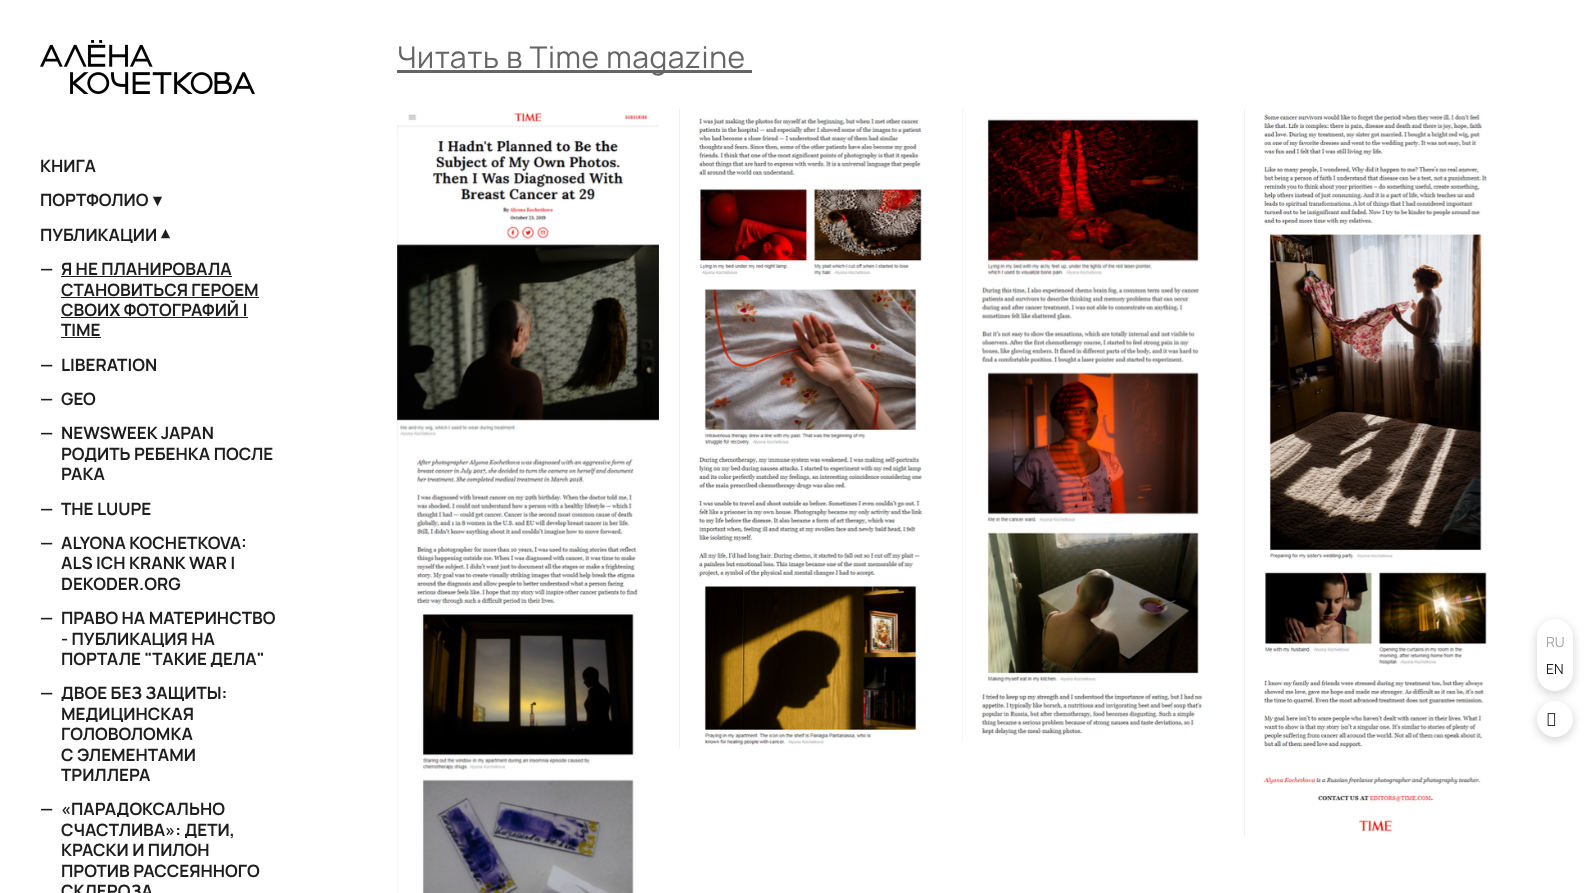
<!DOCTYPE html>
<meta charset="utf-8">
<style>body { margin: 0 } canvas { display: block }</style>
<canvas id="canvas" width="1593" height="893"></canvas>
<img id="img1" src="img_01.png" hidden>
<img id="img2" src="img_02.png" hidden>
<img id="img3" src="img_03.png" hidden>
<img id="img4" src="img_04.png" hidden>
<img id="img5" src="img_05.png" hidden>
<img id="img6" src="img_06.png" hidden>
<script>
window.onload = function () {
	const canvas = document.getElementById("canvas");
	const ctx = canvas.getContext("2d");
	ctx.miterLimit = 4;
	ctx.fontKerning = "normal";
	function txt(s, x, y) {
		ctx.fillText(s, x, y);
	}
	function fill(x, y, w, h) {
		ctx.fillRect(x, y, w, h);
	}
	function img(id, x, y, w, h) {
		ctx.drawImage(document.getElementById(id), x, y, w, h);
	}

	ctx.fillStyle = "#FFFFFF";
	fill(0, 0, 1593, 893);
	ctx.fillStyle = "#656565";
	fill(397, 70, 355, 3);
	img("img1", 397, 113, 262, 780);
	img("img2", 679, 109, 244, 639);
	img("img3", 962, 109, 241, 633);
	img("img4", 1244, 109, 243, 728);
	img("img5", 40, 40, 215, 54);
	ctx.fillStyle = "#1E1E1E";
	fill(61, 276, 171, 1);
	fill(61, 297, 198, 1);
	fill(61, 317, 187, 1);
	fill(61, 337, 40, 1);
	ctx.save();
	ctx.beginPath();
	ctx.moveTo(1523, 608);
	ctx.lineTo(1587, 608);
	ctx.lineTo(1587, 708);
	ctx.lineTo(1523, 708);
	ctx.closePath();
	ctx.moveTo(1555, 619);
	ctx.bezierCurveTo(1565, 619, 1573, 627, 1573, 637);
	ctx.lineTo(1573, 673);
	ctx.bezierCurveTo(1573, 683, 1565, 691, 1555, 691);
	ctx.bezierCurveTo(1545, 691, 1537, 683, 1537, 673);
	ctx.lineTo(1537, 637);
	ctx.bezierCurveTo(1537, 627, 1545, 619, 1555, 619);
	ctx.closePath();
	ctx.clip("evenodd");
	ctx.fillStyle = "rgba(0, 0, 0, 0.15)";
	ctx.filter = "blur(4px)";
	ctx.beginPath();
	ctx.roundRect(1536, 621, 38, 74, 19);
	ctx.fill();
	ctx.filter = "none";
	ctx.restore();
	ctx.save();
	ctx.beginPath();
	ctx.moveTo(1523, 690);
	ctx.lineTo(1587, 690);
	ctx.lineTo(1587, 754);
	ctx.lineTo(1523, 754);
	ctx.closePath();
	ctx.moveTo(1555, 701);
	ctx.bezierCurveTo(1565, 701, 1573, 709, 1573, 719);
	ctx.bezierCurveTo(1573, 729, 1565, 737, 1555, 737);
	ctx.bezierCurveTo(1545, 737, 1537, 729, 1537, 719);
	ctx.bezierCurveTo(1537, 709, 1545, 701, 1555, 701);
	ctx.closePath();
	ctx.clip("evenodd");
	ctx.fillStyle = "rgba(0, 0, 0, 0.15)";
	ctx.filter = "blur(4px)";
	ctx.beginPath();
	ctx.roundRect(1536, 703, 38, 38, 19);
	ctx.fill();
	ctx.filter = "none";
	ctx.restore();
	img("img6", 1547, 713, 9, 13);
	ctx.letterSpacing = "0.6px";
	ctx.font = "30px Manrope";
	ctx.fillStyle = "#656565";
	txt("Читать в Time magazine", 397, 68);
	ctx.letterSpacing = "0px";
	ctx.font = "bold 17px Manrope";
	ctx.fillStyle = "#1E1E1E";
	txt("КНИГА", 40, 172);
	txt("ПОРТФОЛИО", 40, 206);
	ctx.font = "bold 17px DejaVu Sans";
	txt("▾", 153, 206);
	ctx.font = "bold 17px Manrope";
	txt("ПУБЛИКАЦИИ", 40, 241);
	ctx.font = "bold 17px DejaVu Sans";
	ctx.save();
	ctx.translate(170, 229);
	ctx.rotate(180 * Math.PI / 180);
	ctx.fillText("▾", 0, 0);
	ctx.restore();
	ctx.font = "bold 17px Manrope";
	txt("—", 40, 275);
	txt("Я НЕ ПЛАНИРОВАЛА", 61, 275);
	txt("СТАНОВИТЬСЯ ГЕРОЕМ", 61, 296);
	txt("СВОИХ ФОТОГРАФИЙ |", 61, 316);
	txt("TIME", 61, 336);
	txt("—", 40, 371);
	txt("LIBERATION", 61, 371);
	txt("—", 40, 405);
	txt("GEO", 61, 405);
	txt("—", 40, 439);
	txt("NEWSWEEK JAPAN", 61, 439);
	txt("РОДИТЬ РЕБЕНКА ПОСЛЕ", 61, 460);
	txt("РАКА", 61, 480);
	txt("—", 40, 515);
	txt("THE LUUPE", 61, 515);
	txt("—", 40, 549);
	txt("ALYONA KOCHETKOVA:", 61, 549);
	txt("ALS ICH KRANK WAR |", 61, 569);
	txt("DEKODER.ORG", 61, 590);
	txt("—", 40, 624);
	txt("ПРАВО НА МАТЕРИНСТВО", 61, 624);
	txt("- ПУБЛИКАЦИЯ НА", 61, 645);
	txt("ПОРТАЛЕ \"ТАКИЕ ДЕЛА\"", 61, 665);
	txt("—", 40, 699);
	txt("ДВОЕ БЕЗ ЗАЩИТЫ:", 61, 699);
	txt("МЕДИЦИНСКАЯ", 61, 720);
	txt("ГОЛОВОЛОМКА", 61, 740);
	txt("С ЭЛЕМЕНТАМИ", 61, 761);
	txt("ТРИЛЛЕРА", 61, 781);
	txt("—", 40, 815);
	txt("«ПАРАДОКСАЛЬНО", 61, 815);
	txt("СЧАСТЛИВА»: ДЕТИ,", 61, 836);
	txt("КРАСКИ И ПИЛОН", 61, 856);
	txt("ПРОТИВ РАССЕЯННОГО", 61, 877);
	txt("СКЛЕРОЗА", 61, 897);
	ctx.font = "14px Manrope";
	ctx.fillStyle = "#A5A5A5";
	txt("RU", 1546, 647);
	ctx.fillStyle = "#1E1E1E";
	txt("EN", 1546, 674);
};
</script>
